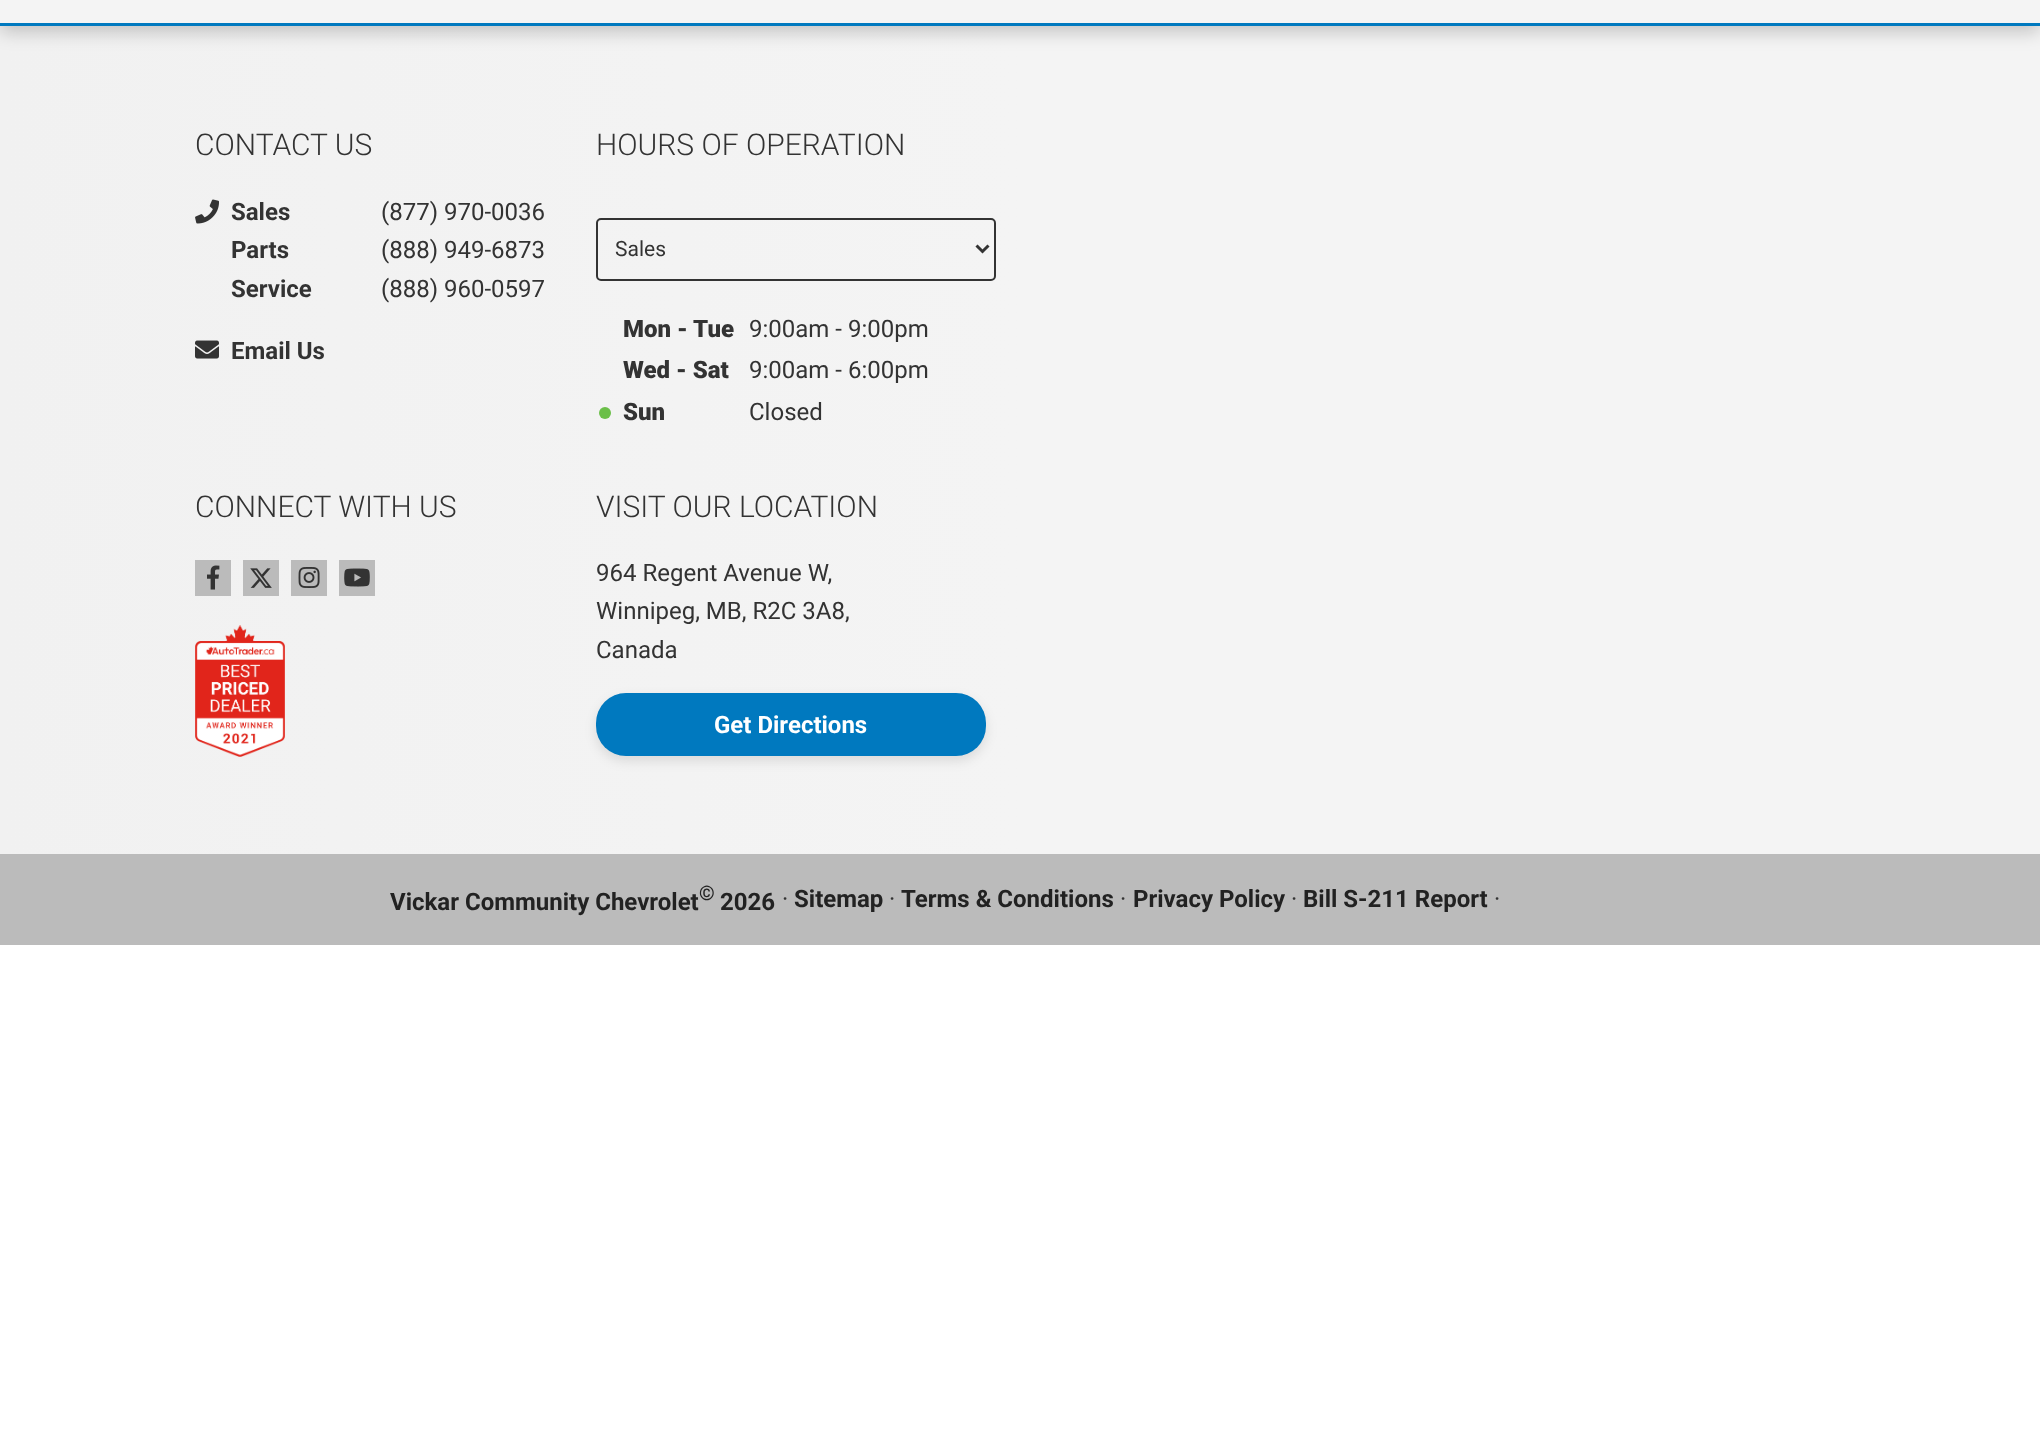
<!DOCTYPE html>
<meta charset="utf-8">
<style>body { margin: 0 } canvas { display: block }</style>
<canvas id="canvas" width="2040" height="1450"></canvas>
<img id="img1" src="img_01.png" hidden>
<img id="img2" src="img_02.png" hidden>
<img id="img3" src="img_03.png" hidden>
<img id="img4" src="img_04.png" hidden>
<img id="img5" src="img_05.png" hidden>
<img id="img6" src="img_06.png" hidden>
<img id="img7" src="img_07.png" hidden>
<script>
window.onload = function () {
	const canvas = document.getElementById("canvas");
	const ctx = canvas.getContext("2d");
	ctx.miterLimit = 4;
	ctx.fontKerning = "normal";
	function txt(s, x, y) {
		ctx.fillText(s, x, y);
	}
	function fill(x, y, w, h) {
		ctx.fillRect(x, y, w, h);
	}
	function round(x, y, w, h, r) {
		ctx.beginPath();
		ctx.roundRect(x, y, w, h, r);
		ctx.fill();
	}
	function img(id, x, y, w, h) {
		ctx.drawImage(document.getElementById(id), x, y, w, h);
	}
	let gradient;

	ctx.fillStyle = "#FFFFFF";
	fill(0, 0, 2040, 1450);
	ctx.fillStyle = "#F4F4F4";
	fill(1020, 26, 1020, 828);
	gradient = ctx.createLinearGradient(0, 440, 1020, 440);
	gradient.addColorStop(0, "#F1F1F1");
	gradient.addColorStop(1, "#F4F4F4");
	ctx.fillStyle = gradient;
	fill(0, 26, 1020, 828);
	ctx.fillStyle = "rgba(0, 0, 0, 0.2)";
	ctx.filter = "blur(9px)";
	ctx.beginPath();
	ctx.rect(0, -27, 2040, 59);
	ctx.fill();
	ctx.filter = "none";
	ctx.fillStyle = "#F4F4F4";
	fill(0, 0, 2040, 23);
	ctx.fillStyle = "#0079BF";
	fill(0, 23, 2040, 3);
	img("img1", 195, 199, 24, 25);
	img("img2", 195, 340, 24, 19);
	ctx.beginPath();
	ctx.roundRect(597, 219, 398, 61, 4);
	ctx.strokeStyle = "#333333";
	ctx.lineWidth = 2;
	ctx.stroke();
	ctx.beginPath();
	ctx.moveTo(976.5, 245.5);
	ctx.lineTo(982.5, 251.5);
	ctx.lineTo(988.5, 245.5);
	ctx.lineWidth = 3;
	ctx.stroke();
	ctx.fillStyle = "#6BBF49";
	ctx.beginPath();
	ctx.arc(605, 413, 6, 0, Math.PI * 2);
	ctx.fill();
	ctx.fillStyle = "#BBBBBB";
	fill(195, 560, 36, 36);
	img("img3", 207, 565, 13, 25);
	fill(243, 560, 36, 36);
	img("img4", 250, 568, 22, 20);
	fill(291, 560, 36, 36);
	img("img5", 298, 567, 22, 21);
	fill(339, 560, 36, 36);
	img("img6", 344, 568, 26, 19);
	img("img7", 195, 625, 90, 132);
	ctx.fillStyle = "rgba(0, 0, 0, 0.1)";
	ctx.filter = "blur(6px)";
	ctx.beginPath();
	ctx.roundRect(596, 698, 390, 63, 30);
	ctx.fill();
	ctx.filter = "none";
	ctx.fillStyle = "#0079BF";
	round(596, 693, 390, 63, 30);
	ctx.fillStyle = "#BBBBBB";
	fill(0, 854, 2040, 91);
	ctx.font = "300 30px Roboto";
	ctx.fillStyle = "#333333";
	txt("CONTACT US", 195, 155);
	ctx.font = "bold 24px Roboto";
	txt("Sales", 231, 220);
	ctx.font = "24px Roboto";
	txt("(877) 970-0036", 381, 220);
	ctx.font = "bold 24px Roboto";
	txt("Parts", 231, 258);
	ctx.font = "24px Roboto";
	txt("(888) 949-6873", 381, 258);
	ctx.font = "bold 24px Roboto";
	txt("Service", 231, 297);
	ctx.font = "24px Roboto";
	txt("(888) 960-0597", 381, 297);
	ctx.font = "bold 24px Roboto";
	txt("Email Us", 231, 359);
	ctx.font = "300 30px Roboto";
	txt("HOURS OF OPERATION", 596, 155);
	ctx.font = "21px Roboto";
	txt("Sales", 615, 256);
	ctx.font = "900 24px Roboto";
	txt("Mon - Tue", 623, 337);
	ctx.font = "24px Roboto";
	txt("9:00am - 9:00pm", 749, 337);
	ctx.font = "900 24px Roboto";
	txt("Wed - Sat", 623, 378);
	ctx.font = "24px Roboto";
	txt("9:00am - 6:00pm", 749, 378);
	ctx.font = "900 24px Roboto";
	txt("Sun", 623, 420);
	ctx.font = "24px Roboto";
	txt("Closed", 749, 420);
	ctx.font = "300 30px Roboto";
	txt("CONNECT WITH US", 195, 517);
	txt("VISIT OUR LOCATION", 596, 517);
	ctx.font = "24px Roboto";
	txt("964 Regent Avenue W,", 596, 581);
	txt("Winnipeg, MB, R2C 3A8,", 596, 619);
	txt("Canada", 596, 658);
	ctx.font = "bold 24px Roboto";
	ctx.fillStyle = "#FFFFFF";
	txt("Get Directions", 714, 733);
	ctx.fillStyle = "#222222";
	txt("Vickar Community Chevrolet", 390, 910);
	ctx.font = "bold 20px Roboto";
	txt("©", 699, 900);
	ctx.font = "bold 24px Roboto";
	txt("2026", 720, 910);
	ctx.font = "24px Roboto";
	ctx.fillStyle = "#333333";
	txt("·", 782, 907);
	ctx.font = "bold 24px Roboto";
	ctx.fillStyle = "#222222";
	txt("Sitemap", 794, 907);
	ctx.font = "24px Roboto";
	ctx.fillStyle = "#333333";
	txt("·", 889, 907);
	ctx.font = "bold 24px Roboto";
	ctx.fillStyle = "#222222";
	txt("Terms & Conditions", 901, 907);
	ctx.font = "24px Roboto";
	ctx.fillStyle = "#333333";
	txt("·", 1120, 907);
	ctx.font = "bold 24px Roboto";
	ctx.fillStyle = "#222222";
	txt("Privacy Policy", 1133, 907);
	ctx.font = "24px Roboto";
	ctx.fillStyle = "#333333";
	txt("·", 1291, 907);
	ctx.font = "bold 24px Roboto";
	ctx.fillStyle = "#222222";
	txt("Bill S-211 Report", 1303, 907);
	ctx.font = "24px Roboto";
	ctx.fillStyle = "#333333";
	txt("·", 1494, 907);
};
</script>
